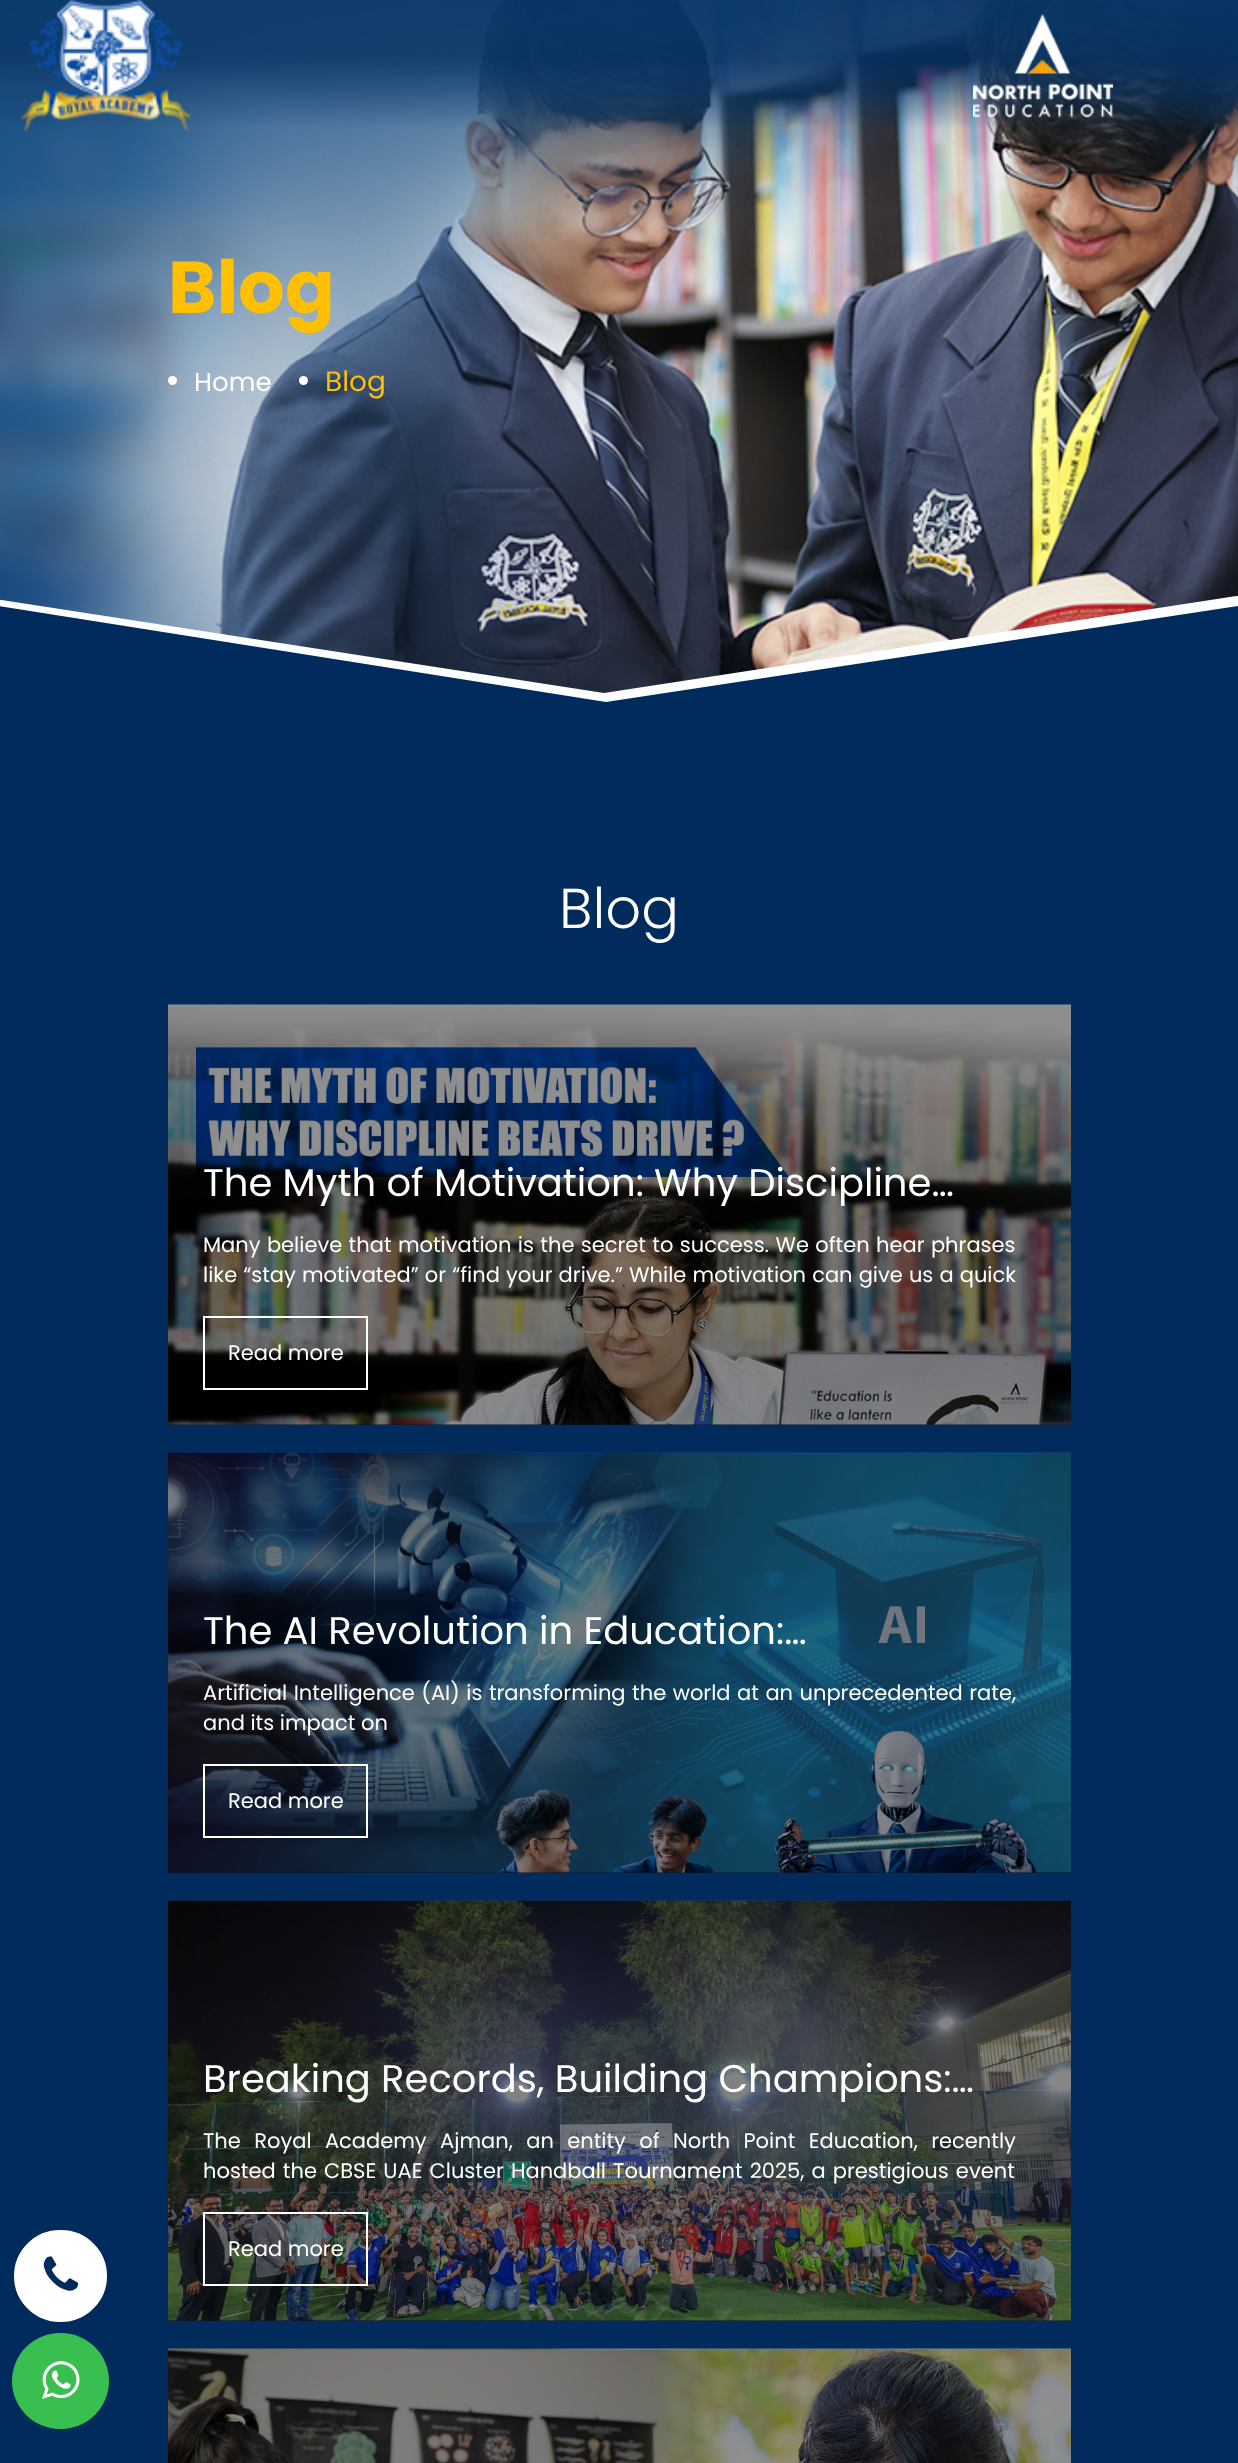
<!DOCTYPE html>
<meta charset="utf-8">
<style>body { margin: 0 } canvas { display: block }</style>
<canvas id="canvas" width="1238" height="2463"></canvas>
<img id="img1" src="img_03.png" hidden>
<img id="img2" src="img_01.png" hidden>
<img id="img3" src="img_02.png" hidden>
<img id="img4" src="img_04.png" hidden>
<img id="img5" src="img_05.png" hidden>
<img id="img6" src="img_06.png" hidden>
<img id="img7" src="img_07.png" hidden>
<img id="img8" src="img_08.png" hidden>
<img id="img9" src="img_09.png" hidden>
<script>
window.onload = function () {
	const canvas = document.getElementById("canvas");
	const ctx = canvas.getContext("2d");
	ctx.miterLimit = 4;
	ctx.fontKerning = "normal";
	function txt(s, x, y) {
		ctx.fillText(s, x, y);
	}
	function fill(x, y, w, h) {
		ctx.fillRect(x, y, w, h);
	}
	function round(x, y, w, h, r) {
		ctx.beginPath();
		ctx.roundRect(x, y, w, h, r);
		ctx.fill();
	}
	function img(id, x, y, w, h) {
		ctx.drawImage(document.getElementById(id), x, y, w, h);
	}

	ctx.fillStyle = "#002B5C";
	fill(0, 0, 1238, 2463);
	ctx.fillStyle = "#001834";
	fill(168, 2320, 903, 1);
	fill(168, 1872, 903, 1);
	fill(168, 1424, 903, 1);
	img("img1", 0, 0, 1238, 693);
	img("img2", 21, 0, 170, 132);
	img("img3", 973, 14, 140, 104);
	ctx.fillStyle = "#FFFFFF";
	ctx.beginPath();
	ctx.arc(172.5, 380.5, 4.5, 0, Math.PI * 2);
	ctx.fill();
	ctx.beginPath();
	ctx.arc(303.5, 380.5, 4.5, 0, Math.PI * 2);
	ctx.fill();
	ctx.fillStyle = "#FDFEFF";
	ctx.beginPath();
	ctx.moveTo(-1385, 386);
	ctx.lineTo(599, 706);
	ctx.lineTo(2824, 371);
	ctx.lineTo(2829, 352);
	ctx.lineTo(604, 693);
	ctx.closePath();
	ctx.fill();
	ctx.save();
	ctx.beginPath();
	ctx.rect(0, 354, 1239, 367);
	ctx.clip();
	ctx.fillStyle = "#002B5C";
	ctx.beginPath();
	ctx.moveTo(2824, 365);
	ctx.lineTo(606, 702);
	ctx.lineTo(-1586, 356);
	ctx.lineTo(-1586, 725);
	ctx.lineTo(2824, 721);
	ctx.closePath();
	ctx.fill();
	ctx.restore();
	img("img4", 168, 1004, 903, 421);
	ctx.strokeStyle = "#FFFFFF";
	ctx.lineWidth = 2;
	ctx.strokeRect(204, 1317, 163, 72);
	img("img5", 168, 1452, 903, 421);
	ctx.strokeRect(204, 1765, 163, 72);
	img("img6", 168, 1900, 903, 421);
	ctx.strokeRect(204, 2213, 163, 72);
	img("img7", 168, 2348, 903, 115);
	ctx.fillStyle = "#FFFFFF";
	ctx.beginPath();
	ctx.roundRect(13, 2229, 95, 94, 47);
	ctx.fill();
	ctx.strokeStyle = "#002B5C";
	ctx.stroke();
	img("img8", 43, 2256, 36, 35);
	ctx.fillStyle = "#39BE50";
	round(12, 2333, 97, 96, 48);
	img("img9", 42, 2361, 38, 38);
	ctx.font = "bold 73.5px Poppins";
	ctx.fillStyle = "#FFBF02";
	txt("Blog", 168, 313);
	ctx.font = "26px Poppins";
	ctx.fillStyle = "#FFFFFF";
	txt("Home", 194, 391);
	ctx.font = "28px Poppins";
	ctx.fillStyle = "#FFBF02";
	txt("Blog", 325, 391);
	ctx.font = "300 56px Poppins";
	ctx.fillStyle = "#FFFFFF";
	txt("Blog", 559, 928);
	ctx.font = "38.5px Poppins";
	txt("The Myth of Motivation: Why Discipline…", 203, 1196);
	ctx.wordSpacing = "0.75px";
	ctx.font = "21px Poppins";
	txt("Many believe that motivation is the secret to success. We often hear phrases", 203, 1252);
	ctx.wordSpacing = "0.5px";
	txt("like “stay motivated” or “find your drive.” While motivation can give us a quick", 203, 1282);
	ctx.wordSpacing = "0px";
	txt("Read more", 228, 1360);
	ctx.font = "38.5px Poppins";
	txt("The AI Revolution in Education:…", 203, 1644);
	ctx.wordSpacing = "0.9px";
	ctx.font = "21px Poppins";
	txt("Artificial Intelligence (AI) is transforming the world at an unprecedented rate,", 203, 1700);
	ctx.wordSpacing = "0px";
	txt("and its impact on", 203, 1730);
	txt("Read more", 228, 1808);
	ctx.font = "38.5px Poppins";
	txt("Breaking Records, Building Champions:…", 203, 2092);
	ctx.wordSpacing = "7.75px";
	ctx.font = "21px Poppins";
	txt("The Royal Academy Ajman, an entity of North Point Education, recently", 203, 2148);
	ctx.wordSpacing = "1.5px";
	txt("hosted the CBSE UAE Cluster Handball Tournament 2025, a prestigious event", 203, 2178);
	ctx.wordSpacing = "0px";
	txt("Read more", 228, 2256);
};
</script>
